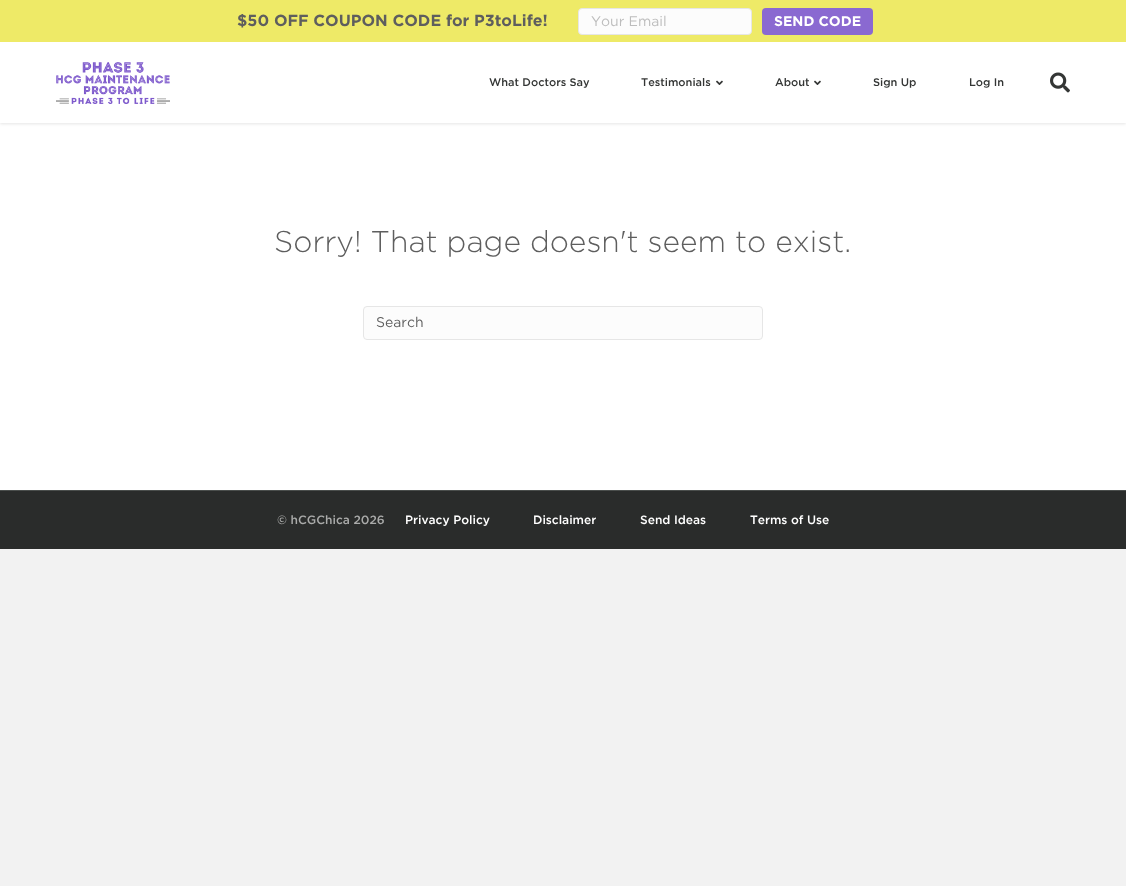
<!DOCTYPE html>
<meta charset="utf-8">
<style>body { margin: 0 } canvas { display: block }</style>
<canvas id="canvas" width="1126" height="886"></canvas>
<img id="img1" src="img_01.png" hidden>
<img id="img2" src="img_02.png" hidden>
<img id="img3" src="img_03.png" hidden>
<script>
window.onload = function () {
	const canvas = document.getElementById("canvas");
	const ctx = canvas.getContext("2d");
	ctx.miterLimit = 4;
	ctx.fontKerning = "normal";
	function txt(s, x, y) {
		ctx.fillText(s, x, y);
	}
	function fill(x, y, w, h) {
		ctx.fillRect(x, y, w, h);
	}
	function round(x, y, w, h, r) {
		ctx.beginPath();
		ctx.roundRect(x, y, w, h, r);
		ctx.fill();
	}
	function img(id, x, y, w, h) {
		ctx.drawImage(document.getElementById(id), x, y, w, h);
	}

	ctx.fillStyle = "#F2F2F2";
	fill(0, 0, 1126, 886);
	ctx.fillStyle = "#FFFFFF";
	fill(0, 123, 1126, 367);
	ctx.fillStyle = "rgba(1, 1, 1, 0.1)";
	ctx.filter = "blur(1.5px)";
	ctx.beginPath();
	ctx.rect(0, 43, 1126, 81);
	ctx.fill();
	ctx.filter = "none";
	ctx.fillStyle = "#EEEA67";
	fill(0, 0, 1126, 42);
	ctx.fillStyle = "#FCFCFC";
	ctx.beginPath();
	ctx.roundRect(578.5, 8.5, 173, 26, 3.5);
	ctx.fill();
	ctx.strokeStyle = "#E6E6E6";
	ctx.stroke();
	ctx.fillStyle = "#8A69D1";
	round(762, 8, 111, 27, 4);
	ctx.fillStyle = "#FFFFFF";
	fill(0, 42, 1126, 81);
	img("img1", 56, 62, 114, 42);
	img("img2", 716, 80, 7, 5);
	img("img2", 814, 80, 7, 5);
	img("img3", 1050, 72, 20, 21);
	ctx.fillStyle = "#FCFCFC";
	ctx.beginPath();
	ctx.roundRect(363.5, 306.5, 399, 33, 3.5);
	ctx.fill();
	ctx.stroke();
	ctx.fillStyle = "#2A2C2B";
	fill(0, 491, 1126, 58);
	ctx.fillStyle = "#4A4E4C";
	fill(0, 490, 1126, 1);
	ctx.font = "bold 16px Gotham";
	ctx.fillStyle = "#5E5E5E";
	txt("$50 OFF COUPON CODE for P3toLife!", 237, 26);
	ctx.font = "14px Gotham";
	ctx.fillStyle = "#BDBDBD";
	txt("Your Email", 591, 26);
	ctx.font = "bold 14px Gotham";
	ctx.fillStyle = "#FFFFFF";
	txt("SEND CODE", 774, 26);
	ctx.font = "500 11px Gotham";
	ctx.fillStyle = "#343635";
	txt("What Doctors Say", 489, 86);
	txt("Testimonials", 641, 86);
	txt("About", 775, 86);
	txt("Sign Up", 873, 86);
	txt("Log In", 969, 86);
	ctx.font = "300 30px Gotham";
	ctx.fillStyle = "#5E5E5E";
	txt("Sorry! That page doesn't seem to exist.", 274, 252);
	ctx.font = "14px Gotham";
	txt("Search", 376, 327);
	ctx.font = "500 12px Gotham";
	ctx.fillStyle = "#AAABAA";
	txt("© hCGChica 2026", 277, 524);
	ctx.fillStyle = "#FFFFFF";
	txt("Privacy Policy", 405, 524);
	txt("Disclaimer", 533, 524);
	txt("Send Ideas", 640, 524);
	txt("Terms of Use", 750, 524);
};
</script>
